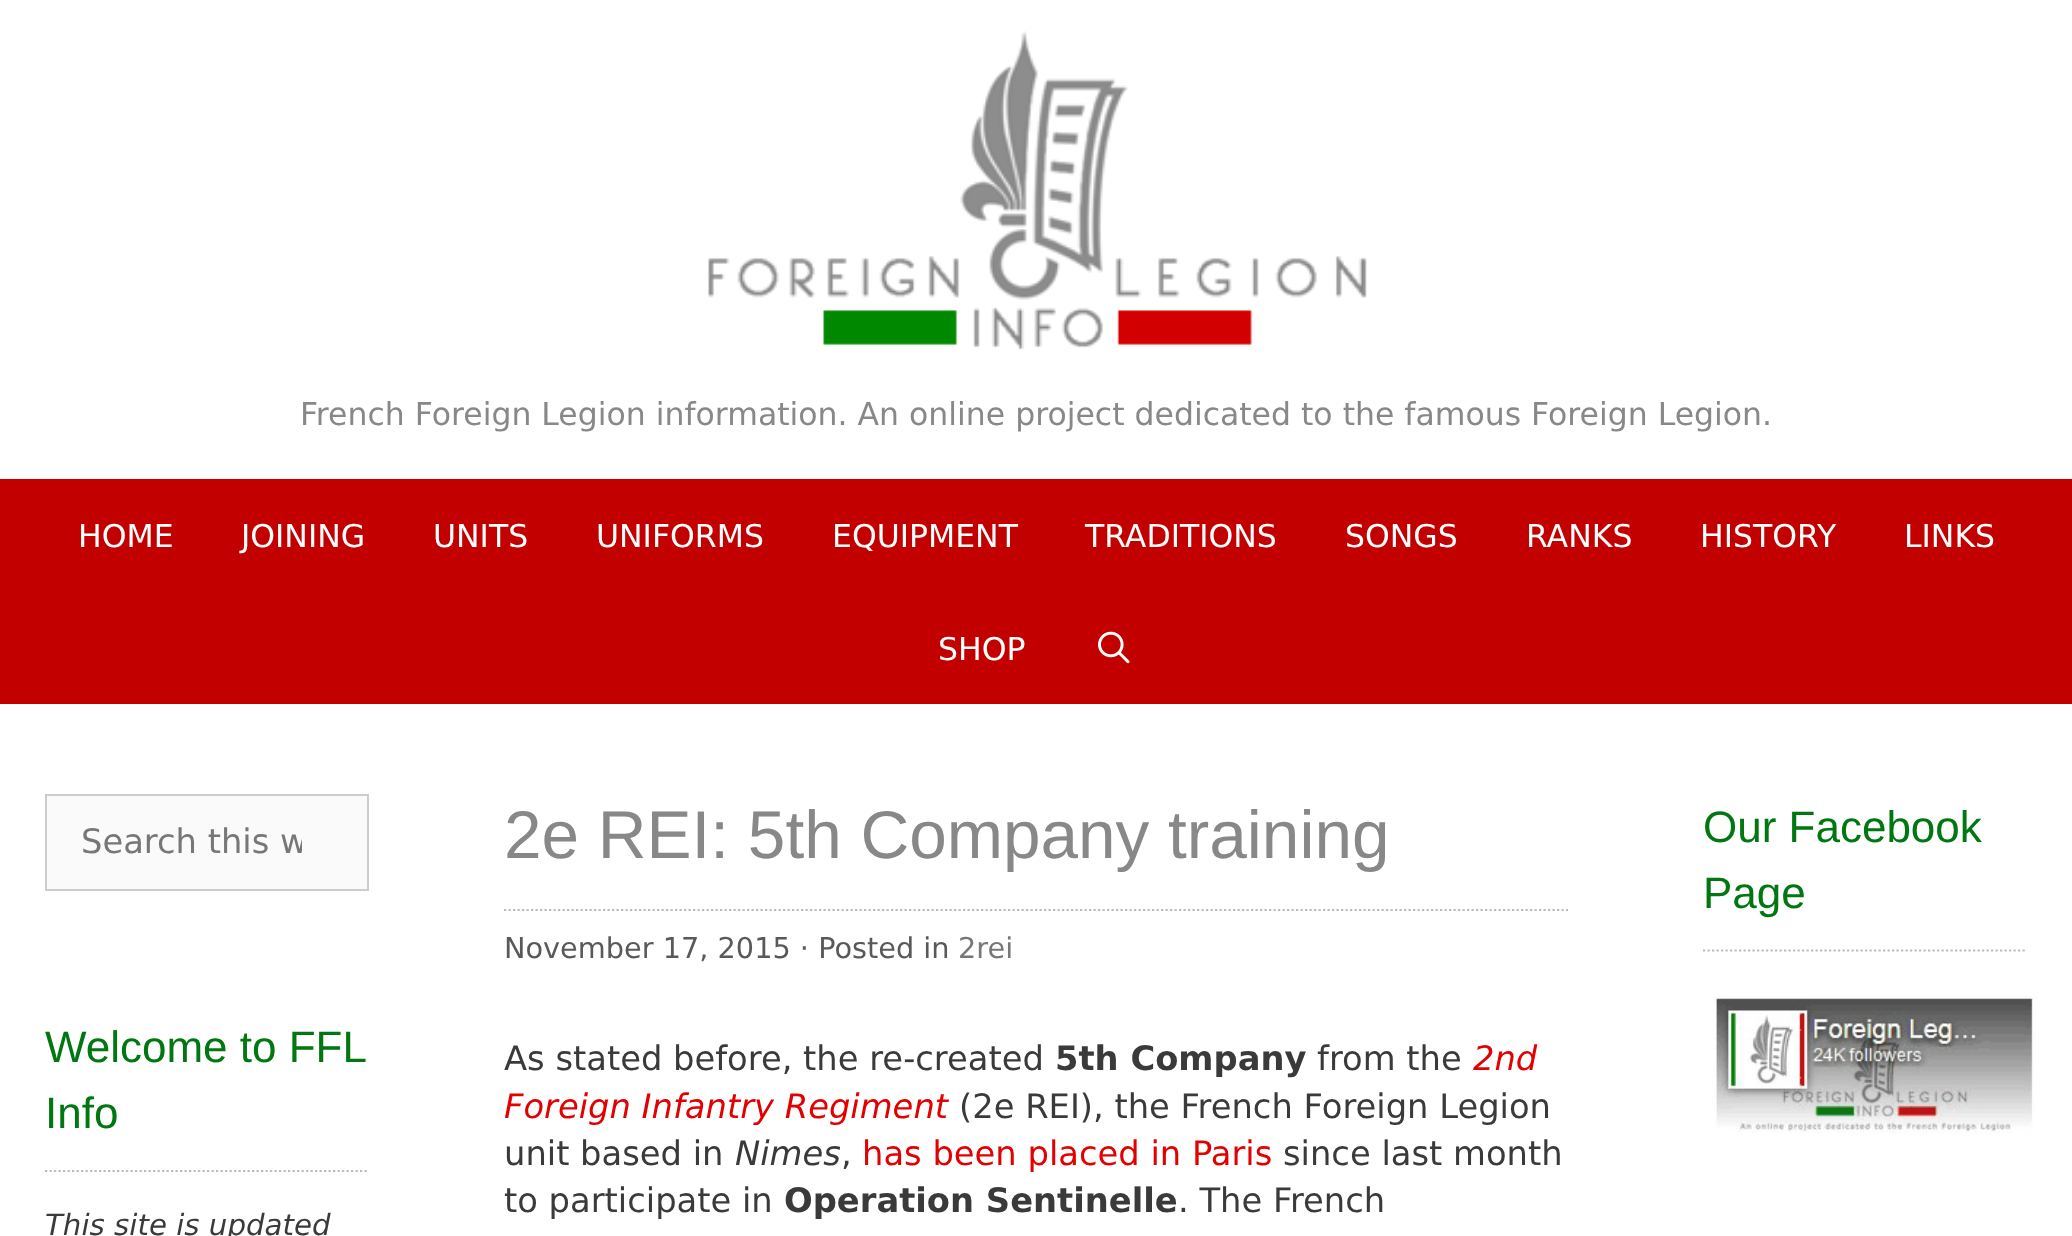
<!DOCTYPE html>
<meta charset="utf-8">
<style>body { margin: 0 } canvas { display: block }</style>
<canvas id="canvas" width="2072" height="1236"></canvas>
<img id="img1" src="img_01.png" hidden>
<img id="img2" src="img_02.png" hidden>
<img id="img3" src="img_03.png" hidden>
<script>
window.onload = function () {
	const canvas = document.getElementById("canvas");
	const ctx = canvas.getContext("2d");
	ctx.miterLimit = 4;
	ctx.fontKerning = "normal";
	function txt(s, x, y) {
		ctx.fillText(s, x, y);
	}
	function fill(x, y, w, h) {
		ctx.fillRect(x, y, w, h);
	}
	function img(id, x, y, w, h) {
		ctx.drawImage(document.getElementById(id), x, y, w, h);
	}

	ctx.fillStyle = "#FFFFFF";
	fill(0, 0, 2072, 1236);
	img("img1", 708, 31, 659, 319);
	ctx.fillStyle = "#C20000";
	fill(0, 479, 2072, 225);
	img("img2", 1098, 631, 32, 33);
	ctx.fillStyle = "#FAFAFA";
	ctx.beginPath();
	ctx.rect(46, 795, 322, 95);
	ctx.fill();
	ctx.strokeStyle = "#CCCCCC";
	ctx.lineWidth = 2;
	ctx.stroke();
	ctx.beginPath();
	ctx.moveTo(45, 1171);
	ctx.lineTo(369, 1171);
	ctx.strokeStyle = "#BBBBBB";
	ctx.lineWidth = 2.2;
	ctx.setLineDash([2.25, 2.25]);
	ctx.stroke();
	ctx.beginPath();
	ctx.moveTo(504, 910);
	ctx.lineTo(1568, 910);
	ctx.stroke();
	ctx.beginPath();
	ctx.moveTo(1703, 950.5);
	ctx.lineTo(2027, 950.5);
	ctx.stroke();
	img("img3", 1714, 996, 322, 138);
	ctx.font = "31.5px DejaVu Sans";
	ctx.fillStyle = "#888888";
	txt("French Foreign Legion information. An online project dedicated to the famous Foreign Legion.", 300, 425);
	ctx.fillStyle = "#FFFFFF";
	txt("HOME", 78, 547);
	txt("JOINING", 241, 547);
	txt("UNITS", 433, 547);
	txt("UNIFORMS", 596, 547);
	txt("EQUIPMENT", 832, 547);
	txt("TRADITIONS", 1085, 547);
	txt("SONGS", 1345, 547);
	txt("RANKS", 1526, 547);
	txt("HISTORY", 1700, 547);
	txt("LINKS", 1904, 547);
	txt("SHOP", 938, 660);
	ctx.save();
	ctx.beginPath();
	ctx.rect(81, 821, 221, 41);
	ctx.clip();
	ctx.font = "33.75px DejaVu Sans";
	ctx.fillStyle = "#777777";
	txt("Search this w", 81, 853);
	ctx.restore();
	ctx.font = "44px Liberation Sans";
	ctx.fillStyle = "#007711";
	txt("Welcome to FFL", 45, 1062);
	txt("Info", 45, 1128);
	ctx.font = "italic 29.25px DejaVu Sans";
	ctx.fillStyle = "#3A3A3A";
	txt("This site is updated", 45, 1235);
	ctx.font = "67.5px Liberation Sans";
	ctx.fillStyle = "#888888";
	txt("2e REI: 5th Company training", 504, 858);
	ctx.font = "28.75px DejaVu Sans";
	ctx.fillStyle = "#595959";
	txt("November 17, 2015 · Posted in", 504, 958);
	ctx.fillStyle = "#777777";
	txt("2rei", 958, 958);
	ctx.font = "33.75px DejaVu Sans";
	ctx.fillStyle = "#3A3A3A";
	txt("As stated before, the re-created", 504, 1070);
	ctx.font = "bold 33.75px DejaVu Sans";
	txt("5th Company", 1055, 1070);
	ctx.font = "33.75px DejaVu Sans";
	txt("from the", 1317, 1070);
	ctx.font = "italic 33.75px DejaVu Sans";
	ctx.fillStyle = "#E20000";
	txt("2nd", 1473, 1070);
	txt("Foreign Infantry Regiment", 504, 1118);
	ctx.font = "33.75px DejaVu Sans";
	ctx.fillStyle = "#3A3A3A";
	txt("(2e REI), the French Foreign Legion", 959, 1118);
	txt("unit based in", 504, 1165);
	ctx.font = "italic 33.75px DejaVu Sans";
	txt("Nimes", 735, 1165);
	ctx.font = "33.75px DejaVu Sans";
	txt(",", 841, 1165);
	ctx.fillStyle = "#E20000";
	txt("has been placed in Paris", 862, 1165);
	ctx.fillStyle = "#3A3A3A";
	txt("since last month", 1283, 1165);
	txt("to participate in", 504, 1212);
	ctx.font = "bold 33.75px DejaVu Sans";
	txt("Operation Sentinelle", 784, 1212);
	ctx.font = "33.75px DejaVu Sans";
	txt(". The French", 1178, 1212);
	ctx.font = "44px Liberation Sans";
	ctx.fillStyle = "#007711";
	txt("Our Facebook", 1703, 842);
	txt("Page", 1703, 908);
};
</script>
